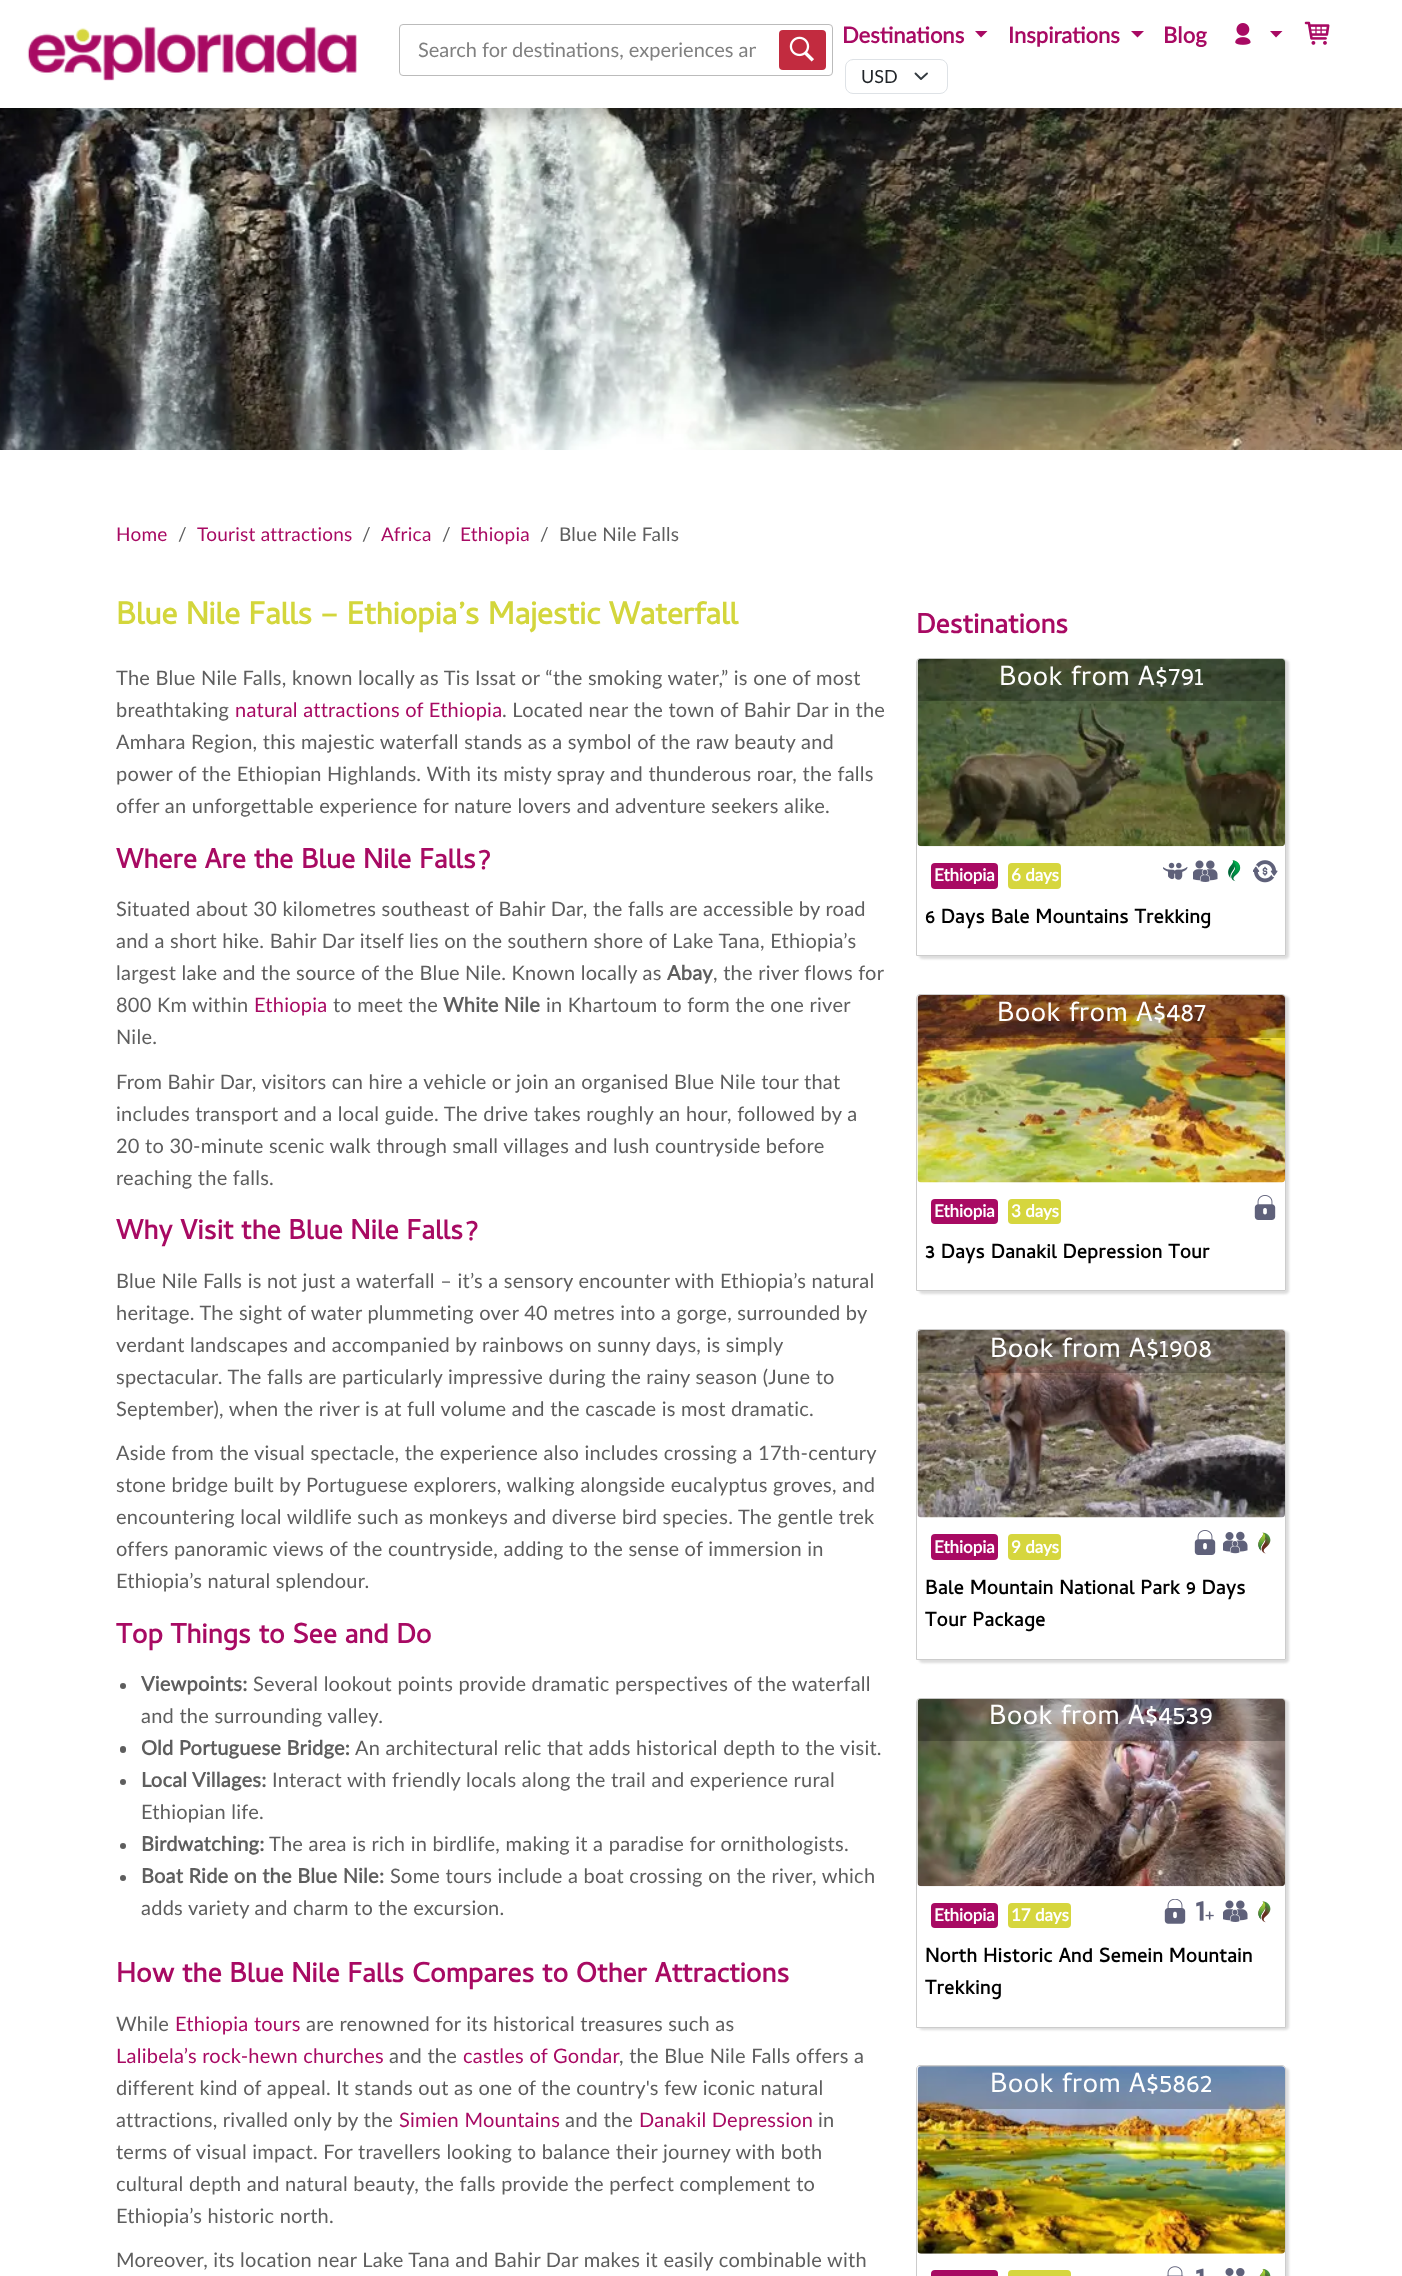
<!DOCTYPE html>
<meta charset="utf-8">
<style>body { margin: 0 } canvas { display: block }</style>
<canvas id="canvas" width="1402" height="2276"></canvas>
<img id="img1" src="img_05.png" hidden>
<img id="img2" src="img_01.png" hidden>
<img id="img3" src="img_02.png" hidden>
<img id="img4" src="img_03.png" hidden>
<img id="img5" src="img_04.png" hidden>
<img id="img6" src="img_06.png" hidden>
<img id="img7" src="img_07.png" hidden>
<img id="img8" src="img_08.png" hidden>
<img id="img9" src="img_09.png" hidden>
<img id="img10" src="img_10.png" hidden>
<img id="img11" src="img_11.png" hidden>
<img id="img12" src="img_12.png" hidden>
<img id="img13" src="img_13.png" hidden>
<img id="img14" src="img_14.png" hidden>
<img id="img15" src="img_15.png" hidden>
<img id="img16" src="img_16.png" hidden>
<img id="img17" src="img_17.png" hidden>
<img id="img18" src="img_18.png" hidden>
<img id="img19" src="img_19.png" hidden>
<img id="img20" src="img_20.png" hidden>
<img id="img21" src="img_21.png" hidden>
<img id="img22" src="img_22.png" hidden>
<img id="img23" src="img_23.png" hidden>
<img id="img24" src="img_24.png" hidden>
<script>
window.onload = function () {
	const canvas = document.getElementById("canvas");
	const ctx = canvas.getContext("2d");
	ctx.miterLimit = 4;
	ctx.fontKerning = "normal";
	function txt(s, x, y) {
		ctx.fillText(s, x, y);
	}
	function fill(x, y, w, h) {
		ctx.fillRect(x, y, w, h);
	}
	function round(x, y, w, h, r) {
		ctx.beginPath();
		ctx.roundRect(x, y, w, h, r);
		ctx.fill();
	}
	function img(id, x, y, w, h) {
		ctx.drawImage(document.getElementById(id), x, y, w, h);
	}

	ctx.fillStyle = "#FFFFFF";
	fill(0, 0, 1402, 2276);
	img("img1", 0, 108, 1402, 342);
	ctx.fillStyle = "rgba(0, 0, 0, 0.25)";
	ctx.filter = "blur(10px)";
	ctx.beginPath();
	ctx.rect(0, 13, 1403, 107);
	ctx.fill();
	ctx.filter = "none";
	ctx.fillStyle = "#FFFFFF";
	fill(0, 0, 1402, 108);
	img("img2", 27, 26, 330, 55);
	ctx.beginPath();
	ctx.roundRect(399.5, 24.5, 433, 51, 3.5);
	ctx.strokeStyle = "#BBBBBB";
	ctx.stroke();
	ctx.fillStyle = "#C22B3F";
	round(779, 30, 47, 40, 4);
	img("img3", 789, 36, 25, 26);
	ctx.fillStyle = "#A80A63";
	ctx.beginPath();
	ctx.moveTo(975, 31);
	ctx.lineTo(987.5, 31);
	ctx.lineTo(981, 37.5);
	ctx.closePath();
	ctx.fill();
	ctx.beginPath();
	ctx.moveTo(1131, 31);
	ctx.lineTo(1144, 31);
	ctx.lineTo(1137.5, 37.5);
	ctx.closePath();
	ctx.fill();
	img("img4", 1235, 23, 16, 22);
	ctx.beginPath();
	ctx.moveTo(1270, 31);
	ctx.lineTo(1282.5, 31);
	ctx.lineTo(1276, 37.5);
	ctx.closePath();
	ctx.fill();
	img("img5", 1304, 21, 26, 24);
	ctx.beginPath();
	ctx.moveTo(915.5, 73.5);
	ctx.lineTo(921, 79);
	ctx.lineTo(927, 73.5);
	ctx.strokeStyle = "#343A40";
	ctx.lineWidth = 1.9;
	ctx.lineCap = "round";
	ctx.lineJoin = "round";
	ctx.stroke();
	ctx.beginPath();
	ctx.roundRect(845.5, 59.5, 102, 34, 7.5);
	ctx.strokeStyle = "#DEE2E6";
	ctx.lineWidth = 1;
	ctx.lineJoin = "miter";
	ctx.stroke();
	ctx.fillStyle = "#5E5E5E";
	ctx.beginPath();
	ctx.arc(123, 1686, 3, 0, Math.PI * 2);
	ctx.fill();
	round(120, 1746, 6, 7, 3);
	ctx.beginPath();
	ctx.arc(123, 1782, 3, 0, Math.PI * 2);
	ctx.fill();
	ctx.beginPath();
	ctx.arc(123, 1846, 3, 0, Math.PI * 2);
	ctx.fill();
	ctx.beginPath();
	ctx.arc(123, 1878, 3, 0, Math.PI * 2);
	ctx.fill();
	ctx.save();
	ctx.beginPath();
	ctx.moveTo(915, 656);
	ctx.lineTo(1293, 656);
	ctx.lineTo(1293, 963);
	ctx.lineTo(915, 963);
	ctx.closePath();
	ctx.moveTo(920, 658);
	ctx.lineTo(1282, 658);
	ctx.bezierCurveTo(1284, 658, 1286, 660, 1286, 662);
	ctx.lineTo(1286, 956);
	ctx.lineTo(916, 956);
	ctx.lineTo(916, 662);
	ctx.bezierCurveTo(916, 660, 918, 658, 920, 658);
	ctx.closePath();
	ctx.clip("evenodd");
	ctx.fillStyle = "#DDDDDD";
	ctx.filter = "blur(1px)";
	ctx.beginPath();
	ctx.roundRect(919, 660, 370, 299, 4);
	ctx.fill();
	ctx.filter = "none";
	ctx.restore();
	ctx.beginPath();
	ctx.roundRect(916.5, 658.5, 369, 297, [3.5, 3.5, 0, 0]);
	ctx.strokeStyle = "#CCCCCC";
	ctx.stroke();
	img("img6", 917, 658, 368, 189);
	ctx.fillStyle = "rgba(0, 0, 0, 0.24)";
	ctx.beginPath();
	ctx.roundRect(918, 659, 367, 42, [4, 4, 0, 0]);
	ctx.fill();
	ctx.fillStyle = "#A80A63";
	round(931, 863, 67, 26, 4);
	ctx.fillStyle = "#D6D63E";
	round(1008, 863, 53, 26, 4);
	img("img7", 1163, 862, 25, 18);
	img("img8", 1193, 860, 25, 22);
	img("img9", 1228, 860, 13, 22);
	img("img10", 1253, 860, 25, 23);
	ctx.save();
	ctx.beginPath();
	ctx.moveTo(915, 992);
	ctx.lineTo(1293, 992);
	ctx.lineTo(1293, 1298);
	ctx.lineTo(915, 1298);
	ctx.closePath();
	ctx.moveTo(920, 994);
	ctx.lineTo(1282, 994);
	ctx.bezierCurveTo(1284, 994, 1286, 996, 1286, 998);
	ctx.lineTo(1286, 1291);
	ctx.lineTo(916, 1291);
	ctx.lineTo(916, 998);
	ctx.bezierCurveTo(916, 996, 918, 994, 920, 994);
	ctx.closePath();
	ctx.clip("evenodd");
	ctx.fillStyle = "#DDDDDD";
	ctx.filter = "blur(1px)";
	ctx.beginPath();
	ctx.roundRect(919, 996, 370, 298, 4);
	ctx.fill();
	ctx.filter = "none";
	ctx.restore();
	ctx.beginPath();
	ctx.roundRect(916.5, 994.5, 369, 296, [3.5, 3.5, 0, 0]);
	ctx.stroke();
	img("img11", 917, 995, 368, 188);
	ctx.fillStyle = "rgba(0, 0, 0, 0.24)";
	ctx.beginPath();
	ctx.roundRect(918, 995, 367, 43, [4, 4, 0, 0]);
	ctx.fill();
	ctx.fillStyle = "#A80A63";
	round(931, 1199, 67, 25, 4);
	ctx.fillStyle = "#D6D63E";
	round(1008, 1199, 53, 25, 4);
	img("img12", 1254, 1195, 22, 25);
	ctx.save();
	ctx.beginPath();
	ctx.moveTo(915, 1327);
	ctx.lineTo(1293, 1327);
	ctx.lineTo(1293, 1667);
	ctx.lineTo(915, 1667);
	ctx.closePath();
	ctx.moveTo(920, 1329);
	ctx.lineTo(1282, 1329);
	ctx.bezierCurveTo(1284, 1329, 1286, 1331, 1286, 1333);
	ctx.lineTo(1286, 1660);
	ctx.lineTo(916, 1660);
	ctx.lineTo(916, 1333);
	ctx.bezierCurveTo(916, 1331, 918, 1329, 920, 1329);
	ctx.closePath();
	ctx.clip("evenodd");
	ctx.fillStyle = "#DDDDDD";
	ctx.filter = "blur(1px)";
	ctx.beginPath();
	ctx.roundRect(919, 1331, 370, 332, 4);
	ctx.fill();
	ctx.filter = "none";
	ctx.restore();
	ctx.beginPath();
	ctx.roundRect(916.5, 1329.5, 369, 330, [3.5, 3.5, 0, 0]);
	ctx.stroke();
	img("img13", 917, 1330, 368, 188);
	ctx.fillStyle = "rgba(0, 0, 0, 0.24)";
	ctx.beginPath();
	ctx.roundRect(918, 1330, 367, 43, [4, 4, 0, 0]);
	ctx.fill();
	ctx.fillStyle = "#A80A63";
	round(931, 1534, 67, 26, 4);
	ctx.fillStyle = "#D6D63E";
	round(1008, 1534, 53, 26, 4);
	img("img12", 1194, 1530, 22, 25);
	img("img14", 1223, 1531, 25, 23);
	img("img15", 1258, 1532, 13, 22);
	ctx.fillStyle = "#DDDDDD";
	ctx.filter = "blur(1px)";
	ctx.beginPath();
	ctx.roundRect(919, 1700, 370, 330, 4);
	ctx.fill();
	ctx.filter = "none";
	ctx.fillStyle = "#FFFFFF";
	ctx.beginPath();
	ctx.roundRect(916.5, 1698.5, 369, 329, [3.5, 3.5, 0, 0]);
	ctx.fill();
	ctx.stroke();
	img("img16", 917, 1698, 368, 189);
	ctx.fillStyle = "rgba(0, 0, 0, 0.24)";
	ctx.beginPath();
	ctx.roundRect(918, 1699, 367, 42, [4, 4, 0, 0]);
	ctx.fill();
	ctx.fillStyle = "#A80A63";
	round(931, 1903, 67, 25, 4);
	ctx.fillStyle = "#D6D63E";
	round(1008, 1903, 63, 25, 4);
	img("img17", 1164, 1899, 22, 25);
	img("img18", 1196, 1901, 18, 20);
	img("img8", 1223, 1900, 25, 22);
	img("img19", 1258, 1901, 13, 22);
	ctx.save();
	ctx.beginPath();
	ctx.moveTo(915, 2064);
	ctx.lineTo(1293, 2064);
	ctx.lineTo(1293, 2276);
	ctx.lineTo(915, 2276);
	ctx.closePath();
	ctx.moveTo(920, 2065);
	ctx.lineTo(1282, 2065);
	ctx.bezierCurveTo(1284, 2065, 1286, 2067, 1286, 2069);
	ctx.lineTo(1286, 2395);
	ctx.lineTo(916, 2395);
	ctx.lineTo(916, 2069);
	ctx.bezierCurveTo(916, 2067, 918, 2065, 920, 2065);
	ctx.closePath();
	ctx.clip("evenodd");
	ctx.fillStyle = "#DDDDDD";
	ctx.filter = "blur(1px)";
	ctx.beginPath();
	ctx.roundRect(919, 2068, 370, 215, 4);
	ctx.fill();
	ctx.filter = "none";
	ctx.restore();
	ctx.beginPath();
	ctx.moveTo(920, 2065.5);
	ctx.lineTo(1282, 2065.5);
	ctx.bezierCurveTo(1284, 2065.5, 1285.5, 2067, 1285.5, 2069);
	ctx.lineTo(1285.5, 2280.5);
	ctx.lineTo(916.5, 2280.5);
	ctx.lineTo(916.5, 2069);
	ctx.bezierCurveTo(916.5, 2067, 918, 2065.5, 920, 2065.5);
	ctx.closePath();
	ctx.stroke();
	img("img20", 917, 2066, 368, 188);
	ctx.fillStyle = "rgba(0, 0, 0, 0.24)";
	ctx.beginPath();
	ctx.roundRect(918, 2066, 367, 43, [4, 4, 0, 0]);
	ctx.fill();
	ctx.fillStyle = "#A80A63";
	round(931, 2270, 67, 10, 4);
	ctx.fillStyle = "#D6D63E";
	round(1008, 2270, 63, 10, 4);
	img("img21", 1166, 2266, 18, 10);
	img("img22", 1196, 2268, 8, 8);
	img("img23", 1225, 2268, 20, 8);
	img("img24", 1259, 2268, 12, 8);
	ctx.save();
	ctx.beginPath();
	ctx.rect(418, 35, 338, 30);
	ctx.clip();
	ctx.font = "20px Lato";
	ctx.fillStyle = "#808080";
	txt("Search for destinations, experiences an", 418, 57);
	ctx.restore();
	ctx.font = "bold 22px Lato";
	ctx.fillStyle = "#A80A63";
	txt("Destinations", 842, 43);
	txt("Inspirations", 1008, 43);
	ctx.letterSpacing = "0.25px";
	txt("Blog", 1163, 43);
	ctx.letterSpacing = "0px";
	ctx.font = "18px Lato";
	ctx.fillStyle = "#212529";
	txt("USD", 861, 83);
	ctx.letterSpacing = "0.25px";
	ctx.font = "19px Lato";
	ctx.fillStyle = "#A80A63";
	txt("Home", 116, 541);
	ctx.fillStyle = "#5E5E5E";
	txt("/", 178, 541);
	ctx.fillStyle = "#A80A63";
	txt("Tourist attractions", 197, 541);
	ctx.fillStyle = "#5E5E5E";
	txt("/", 362, 541);
	ctx.fillStyle = "#A80A63";
	txt("Africa", 381, 541);
	ctx.fillStyle = "#5E5E5E";
	txt("/", 442, 541);
	ctx.fillStyle = "#A80A63";
	txt("Ethiopia", 460, 541);
	ctx.fillStyle = "#5E5E5E";
	txt("/", 540, 541);
	txt("Blue Nile Falls", 559, 541);
	ctx.letterSpacing = "-0.25px";
	ctx.font = "bold 32px Cambay";
	ctx.fillStyle = "#D3D63C";
	txt("Blue Nile Falls – Ethiopia’s Majestic Waterfall", 116, 624);
	ctx.letterSpacing = "0.25px";
	ctx.font = "20px Lato";
	ctx.fillStyle = "#5E5E5E";
	txt("The Blue Nile Falls, known locally as Tis Issat or “the smoking water,” is one of most", 116, 685);
	txt("breathtaking", 116, 717);
	ctx.fillStyle = "#A80A63";
	txt("natural attractions of Ethiopia", 235, 717);
	ctx.fillStyle = "#5E5E5E";
	txt(". Located near the town of Bahir Dar in the", 502, 717);
	txt("Amhara Region, this majestic waterfall stands as a symbol of the raw beauty and", 116, 749);
	txt("power of the Ethiopian Highlands. With its misty spray and thunderous roar, the falls", 116, 781);
	txt("offer an unforgettable experience for nature lovers and adventure seekers alike.", 116, 813);
	ctx.letterSpacing = "0px";
	ctx.font = "bold 28px Cambay";
	ctx.fillStyle = "#A80A63";
	txt("Where Are the Blue Nile Falls?", 116, 868);
	ctx.letterSpacing = "0.25px";
	ctx.font = "20px Lato";
	ctx.fillStyle = "#5E5E5E";
	txt("Situated about 30 kilometres southeast of Bahir Dar, the falls are accessible by road", 116, 916);
	txt("and a short hike. Bahir Dar itself lies on the southern shore of Lake Tana, Ethiopia’s", 116, 948);
	txt("largest lake and the source of the Blue Nile. Known locally as", 116, 980);
	ctx.font = "bold 20px Lato";
	txt("Abay", 667, 980);
	ctx.font = "20px Lato";
	txt(", the river flows for", 713, 980);
	txt("800 Km within", 116, 1012);
	ctx.fillStyle = "#A80A63";
	txt("Ethiopia", 254, 1012);
	ctx.fillStyle = "#5E5E5E";
	txt("to meet the", 333, 1012);
	ctx.font = "bold 20px Lato";
	txt("White Nile", 443, 1012);
	ctx.font = "20px Lato";
	txt("in Khartoum to form the one river", 546, 1012);
	txt("Nile.", 116, 1044);
	txt("From Bahir Dar, visitors can hire a vehicle or join an organised Blue Nile tour that", 116, 1089);
	txt("includes transport and a local guide. The drive takes roughly an hour, followed by a", 116, 1121);
	txt("20 to 30-minute scenic walk through small villages and lush countryside before", 116, 1153);
	txt("reaching the falls.", 116, 1185);
	ctx.letterSpacing = "0px";
	ctx.font = "bold 28px Cambay";
	ctx.fillStyle = "#A80A63";
	txt("Why Visit the Blue Nile Falls?", 116, 1239);
	ctx.letterSpacing = "0.25px";
	ctx.font = "20px Lato";
	ctx.fillStyle = "#5E5E5E";
	txt("Blue Nile Falls is not just a waterfall – it’s a sensory encounter with Ethiopia’s natural", 116, 1288);
	txt("heritage. The sight of water plummeting over 40 metres into a gorge, surrounded by", 116, 1320);
	txt("verdant landscapes and accompanied by rainbows on sunny days, is simply", 116, 1352);
	txt("spectacular. The falls are particularly impressive during the rainy season (June to", 116, 1384);
	txt("September), when the river is at full volume and the cascade is most dramatic.", 116, 1416);
	txt("Aside from the visual spectacle, the experience also includes crossing a 17th-century", 116, 1460);
	txt("stone bridge built by Portuguese explorers, walking alongside eucalyptus groves, and", 116, 1492);
	txt("encountering local wildlife such as monkeys and diverse bird species. The gentle trek", 116, 1524);
	txt("offers panoramic views of the countryside, adding to the sense of immersion in", 116, 1556);
	txt("Ethiopia’s natural splendour.", 116, 1588);
	ctx.letterSpacing = "0px";
	ctx.font = "bold 28px Cambay";
	ctx.fillStyle = "#A80A63";
	txt("Top Things to See and Do", 116, 1643);
	ctx.letterSpacing = "0.25px";
	ctx.font = "bold 20px Lato";
	ctx.fillStyle = "#5E5E5E";
	txt("Viewpoints:", 141, 1691);
	ctx.font = "20px Lato";
	txt("Several lookout points provide dramatic perspectives of the waterfall", 253, 1691);
	txt("and the surrounding valley.", 141, 1723);
	ctx.font = "bold 20px Lato";
	txt("Old Portuguese Bridge:", 141, 1755);
	ctx.font = "20px Lato";
	txt("An architectural relic that adds historical depth to the visit.", 355, 1755);
	ctx.font = "bold 20px Lato";
	txt("Local Villages:", 141, 1787);
	ctx.font = "20px Lato";
	txt("Interact with friendly locals along the trail and experience rural", 272, 1787);
	txt("Ethiopian life.", 141, 1819);
	ctx.font = "bold 20px Lato";
	txt("Birdwatching:", 141, 1851);
	ctx.font = "20px Lato";
	txt("The area is rich in birdlife, making it a paradise for ornithologists.", 269, 1851);
	ctx.font = "bold 20px Lato";
	txt("Boat Ride on the Blue Nile:", 141, 1883);
	ctx.font = "20px Lato";
	txt("Some tours include a boat crossing on the river, which", 390, 1883);
	txt("adds variety and charm to the excursion.", 141, 1915);
	ctx.letterSpacing = "0px";
	ctx.font = "bold 28px Cambay";
	ctx.fillStyle = "#A80A63";
	txt("How the Blue Nile Falls Compares to Other Attractions", 116, 1982);
	ctx.letterSpacing = "0.25px";
	ctx.font = "20px Lato";
	ctx.fillStyle = "#5E5E5E";
	txt("While", 116, 2031);
	ctx.fillStyle = "#A80A63";
	txt("Ethiopia tours", 175, 2031);
	ctx.fillStyle = "#5E5E5E";
	txt("are renowned for its historical treasures such as", 306, 2031);
	ctx.fillStyle = "#A80A63";
	txt("Lalibela’s rock-hewn churches", 116, 2063);
	ctx.fillStyle = "#5E5E5E";
	txt("and the", 389, 2063);
	ctx.fillStyle = "#A80A63";
	txt("castles of Gondar", 463, 2063);
	ctx.fillStyle = "#5E5E5E";
	txt(", the Blue Nile Falls offers a", 619, 2063);
	txt("different kind of appeal. It stands out as one of the country's few iconic natural", 116, 2095);
	txt("attractions, rivalled only by the", 116, 2127);
	ctx.fillStyle = "#A80A63";
	txt("Simien Mountains", 399, 2127);
	ctx.fillStyle = "#5E5E5E";
	txt("and the", 565, 2127);
	ctx.fillStyle = "#A80A63";
	txt("Danakil Depression", 639, 2127);
	ctx.fillStyle = "#5E5E5E";
	txt("in", 818, 2127);
	txt("terms of visual impact. For travellers looking to balance their journey with both", 116, 2159);
	txt("cultural depth and natural beauty, the falls provide the perfect complement to", 116, 2191);
	txt("Ethiopia’s historic north.", 116, 2223);
	txt("Moreover, its location near Lake Tana and Bahir Dar makes it easily combinable with", 116, 2267);
	ctx.letterSpacing = "0px";
	ctx.font = "bold 28px Cambay";
	ctx.fillStyle = "#A80A63";
	txt("Destinations", 916, 633);
	ctx.letterSpacing = "0.25px";
	ctx.font = "28px Cambay";
	ctx.fillStyle = "#FFFFFF";
	txt("Book from A$791", 999, 685);
	ctx.letterSpacing = "0px";
	ctx.font = "bold 17px Lato";
	txt("Ethiopia", 934, 881);
	txt("6 days", 1011, 881);
	ctx.letterSpacing = "0.25px";
	ctx.font = "bold 20px Cambay";
	ctx.fillStyle = "#000000";
	txt("6 Days Bale Mountains Trekking", 925, 923);
	ctx.font = "28px Cambay";
	ctx.fillStyle = "#FFFFFF";
	txt("Book from A$487", 997, 1021);
	ctx.letterSpacing = "0px";
	ctx.font = "bold 17px Lato";
	txt("Ethiopia", 934, 1217);
	txt("3 days", 1011, 1217);
	ctx.letterSpacing = "0.25px";
	ctx.font = "bold 20px Cambay";
	ctx.fillStyle = "#000000";
	txt("3 Days Danakil Depression Tour", 925, 1258);
	ctx.font = "28px Cambay";
	ctx.fillStyle = "#FFFFFF";
	txt("Book from A$1908", 990, 1357);
	ctx.letterSpacing = "0px";
	ctx.font = "bold 17px Lato";
	txt("Ethiopia", 934, 1553);
	txt("9 days", 1011, 1553);
	ctx.letterSpacing = "0.25px";
	ctx.font = "bold 20px Cambay";
	ctx.fillStyle = "#000000";
	txt("Bale Mountain National Park 9 Days", 925, 1594);
	txt("Tour Package", 925, 1626);
	ctx.font = "28px Cambay";
	ctx.fillStyle = "#FFFFFF";
	txt("Book from A$4539", 989, 1724);
	ctx.letterSpacing = "0px";
	ctx.font = "bold 17px Lato";
	txt("Ethiopia", 934, 1921);
	txt("17 days", 1011, 1921);
	ctx.letterSpacing = "0.25px";
	ctx.font = "bold 20px Cambay";
	ctx.fillStyle = "#000000";
	txt("North Historic And Semein Mountain", 925, 1962);
	txt("Trekking", 925, 1994);
	ctx.font = "28px Cambay";
	ctx.fillStyle = "#FFFFFF";
	txt("Book from A$5862", 990, 2092);
};
</script>
